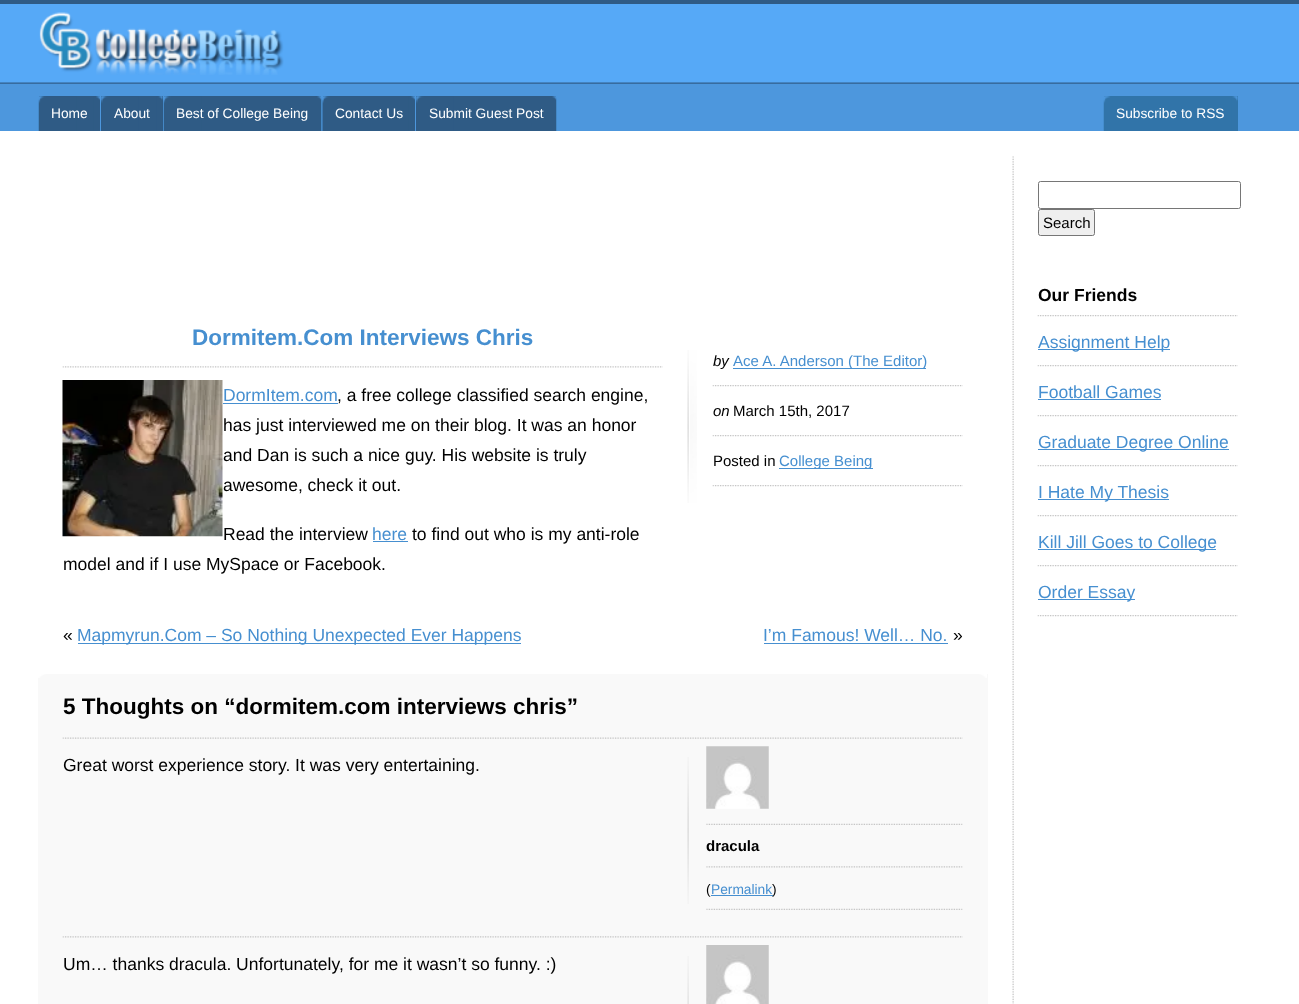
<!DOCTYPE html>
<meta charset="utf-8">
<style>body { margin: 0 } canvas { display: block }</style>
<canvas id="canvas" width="1299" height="1004"></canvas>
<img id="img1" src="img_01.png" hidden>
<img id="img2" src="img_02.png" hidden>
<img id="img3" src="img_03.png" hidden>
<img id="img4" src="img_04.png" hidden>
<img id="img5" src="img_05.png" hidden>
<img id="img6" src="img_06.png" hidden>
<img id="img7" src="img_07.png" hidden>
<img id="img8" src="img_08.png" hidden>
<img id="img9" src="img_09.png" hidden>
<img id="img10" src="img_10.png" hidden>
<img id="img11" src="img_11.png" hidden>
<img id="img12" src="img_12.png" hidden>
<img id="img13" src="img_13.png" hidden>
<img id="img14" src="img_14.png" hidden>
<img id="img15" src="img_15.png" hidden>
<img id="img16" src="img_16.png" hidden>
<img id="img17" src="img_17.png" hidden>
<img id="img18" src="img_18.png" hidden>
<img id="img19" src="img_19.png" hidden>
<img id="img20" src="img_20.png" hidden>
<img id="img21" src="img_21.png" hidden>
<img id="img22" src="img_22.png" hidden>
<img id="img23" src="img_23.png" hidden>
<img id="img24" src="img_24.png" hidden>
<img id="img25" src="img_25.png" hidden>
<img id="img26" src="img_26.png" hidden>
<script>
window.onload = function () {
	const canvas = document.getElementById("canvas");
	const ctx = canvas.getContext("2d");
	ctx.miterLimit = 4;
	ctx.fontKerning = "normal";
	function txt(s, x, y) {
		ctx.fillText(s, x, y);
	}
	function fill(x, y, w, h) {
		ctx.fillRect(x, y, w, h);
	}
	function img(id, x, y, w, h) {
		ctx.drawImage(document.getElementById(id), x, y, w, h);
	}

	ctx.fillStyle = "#4D97DD";
	fill(0, 0, 1299, 1004);
	ctx.fillStyle = "#56A9F7";
	fill(0, 4, 1299, 79);
	ctx.fillStyle = "#2F5B85";
	fill(0, 0, 1299, 4);
	img("img1", 39, 12, 245, 63);
	img("img2", 0, 82, 1299, 2);
	fill(39, 96, 61, 35);
	img("img3", 93, 96, 7, 35);
	img("img4", 38, 96, 39, 35);
	fill(101, 96, 62, 35);
	img("img5", 156, 96, 7, 35);
	img("img6", 101, 96, 38, 35);
	fill(164, 96, 157, 35);
	img("img7", 315, 96, 7, 35);
	img("img4", 163, 96, 39, 35);
	fill(323, 96, 92, 35);
	img("img3", 408, 96, 7, 35);
	img("img8", 322, 96, 38, 35);
	fill(416, 96, 140, 35);
	img("img9", 550, 96, 7, 35);
	img("img6", 416, 96, 38, 35);
	ctx.fillStyle = "#3174A9";
	fill(1104, 96, 134, 35);
	img("img10", 1231, 96, 7, 35);
	img("img11", 1103, 96, 38, 35);
	ctx.fillStyle = "#FFFFFF";
	fill(0, 131, 1299, 873);
	img("img12", 1012, 156, 2, 848);
	img("img13", 62, 366, 601, 2);
	img("img14", 62, 380, 161, 157);
	ctx.fillStyle = "#468FD0";
	fill(223, 403, 115, 1);
	fill(373, 541, 35, 1);
	img("img15", 687, 350, 10, 153);
	img("img16", 712, 385, 251, 2);
	fill(733, 368, 193, 1);
	img("img16", 712, 435, 251, 2);
	img("img16", 712, 485, 251, 2);
	fill(779, 468, 94, 1);
	fill(78, 643, 443, 1);
	fill(764, 643, 184, 1);
	ctx.fillStyle = "#F9F9F9";
	fill(38, 674, 950, 330);
	img("img17", 38, 674, 949, 4);
	img("img18", 62, 737, 901, 2);
	img("img19", 687, 757, 2, 147);
	img("img20", 706, 823, 257, 2);
	img("img21", 706, 746, 63, 63);
	img("img22", 706, 866, 257, 2);
	img("img20", 706, 908, 257, 2);
	ctx.fillStyle = "#468FD0";
	fill(711, 895, 62, 1);
	img("img23", 62, 936, 901, 2);
	img("img24", 687, 956, 2, 48);
	img("img25", 706, 945, 63, 59);
	ctx.beginPath();
	ctx.roundRect(1038.5, 181.5, 202, 27, 2);
	ctx.strokeStyle = "#767676";
	ctx.stroke();
	ctx.fillStyle = "#EFEFEF";
	ctx.beginPath();
	ctx.roundRect(1038.5, 209.5, 56, 26, 2);
	ctx.fill();
	ctx.stroke();
	img("img26", 1037, 315, 201, 2);
	img("img26", 1037, 365, 201, 2);
	ctx.fillStyle = "#468FD0";
	fill(1038, 349, 132, 1);
	img("img26", 1037, 415, 201, 2);
	fill(1038, 399, 123, 1);
	img("img26", 1037, 465, 201, 2);
	fill(1038, 449, 191, 1);
	img("img26", 1037, 515, 201, 2);
	fill(1038, 499, 131, 1);
	img("img26", 1037, 565, 201, 2);
	fill(1038, 549, 178, 1);
	img("img26", 1037, 615, 201, 2);
	fill(1038, 599, 97, 1);
	ctx.font = "13.75px Liberation Sans";
	ctx.fillStyle = "#FFFFFF";
	txt("Home", 51, 118);
	txt("About", 114, 118);
	txt("Best of College Being", 176, 118);
	txt("Contact Us", 335, 118);
	txt("Submit Guest Post", 429, 118);
	txt("Subscribe to RSS", 1116, 118);
	ctx.font = "bold 22.5px Liberation Sans";
	ctx.fillStyle = "#468FD0";
	txt("Dormitem.Com Interviews Chris", 192, 345);
	ctx.font = "17.5px Liberation Sans";
	txt("DormItem.com", 223, 401);
	ctx.fillStyle = "#000000";
	txt(", a free college classified search engine,", 337, 401);
	txt("has just interviewed me on their blog. It was an honor", 223, 431);
	txt("and Dan is such a nice guy. His website is truly", 223, 461);
	txt("awesome, check it out.", 223, 491);
	txt("Read the interview", 223, 540);
	ctx.fillStyle = "#468FD0";
	txt("here", 372, 540);
	ctx.fillStyle = "#000000";
	txt("to find out who is my anti-role", 412, 540);
	txt("model and if I use MySpace or Facebook.", 63, 570);
	ctx.font = "italic 15px Liberation Sans";
	txt("by", 713, 366);
	ctx.font = "15px Liberation Sans";
	ctx.fillStyle = "#468FD0";
	txt("Ace A. Anderson (The Editor)", 733, 366);
	ctx.font = "italic 15px Liberation Sans";
	ctx.fillStyle = "#000000";
	txt("on", 713, 416);
	ctx.font = "15px Liberation Sans";
	txt("March 15th, 2017", 733, 416);
	txt("Posted in", 713, 466);
	ctx.fillStyle = "#468FD0";
	txt("College Being", 779, 466);
	ctx.font = "17.5px Liberation Sans";
	ctx.fillStyle = "#000000";
	txt("«", 63, 641);
	ctx.fillStyle = "#468FD0";
	txt("Mapmyrun.Com – So Nothing Unexpected Ever Happens", 77, 641);
	txt("I’m Famous! Well… No.", 763, 641);
	ctx.fillStyle = "#000000";
	txt("»", 953, 641);
	ctx.font = "bold 22.5px Liberation Sans";
	txt("5 Thoughts on “dormitem.com interviews chris”", 63, 714);
	ctx.font = "17.5px Liberation Sans";
	txt("Great worst experience story. It was very entertaining.", 63, 771);
	ctx.font = "bold 15px Liberation Sans";
	txt("dracula", 706, 851);
	ctx.font = "13.75px Liberation Sans";
	txt("(", 706, 894);
	ctx.fillStyle = "#468FD0";
	txt("Permalink", 711, 894);
	ctx.fillStyle = "#000000";
	txt(")", 772, 894);
	ctx.font = "17.5px Liberation Sans";
	txt("Um… thanks dracula. Unfortunately, for me it wasn’t so funny. :)", 63, 970);
	ctx.font = "15px Liberation Sans";
	txt("Search", 1043, 228);
	ctx.font = "bold 17.5px Liberation Sans";
	txt("Our Friends", 1038, 301);
	ctx.font = "17.5px Liberation Sans";
	ctx.fillStyle = "#468FD0";
	txt("Assignment Help", 1038, 348);
	txt("Football Games", 1038, 398);
	txt("Graduate Degree Online", 1038, 448);
	txt("I Hate My Thesis", 1038, 498);
	txt("Kill Jill Goes to College", 1038, 548);
	txt("Order Essay", 1038, 598);
};
</script>
